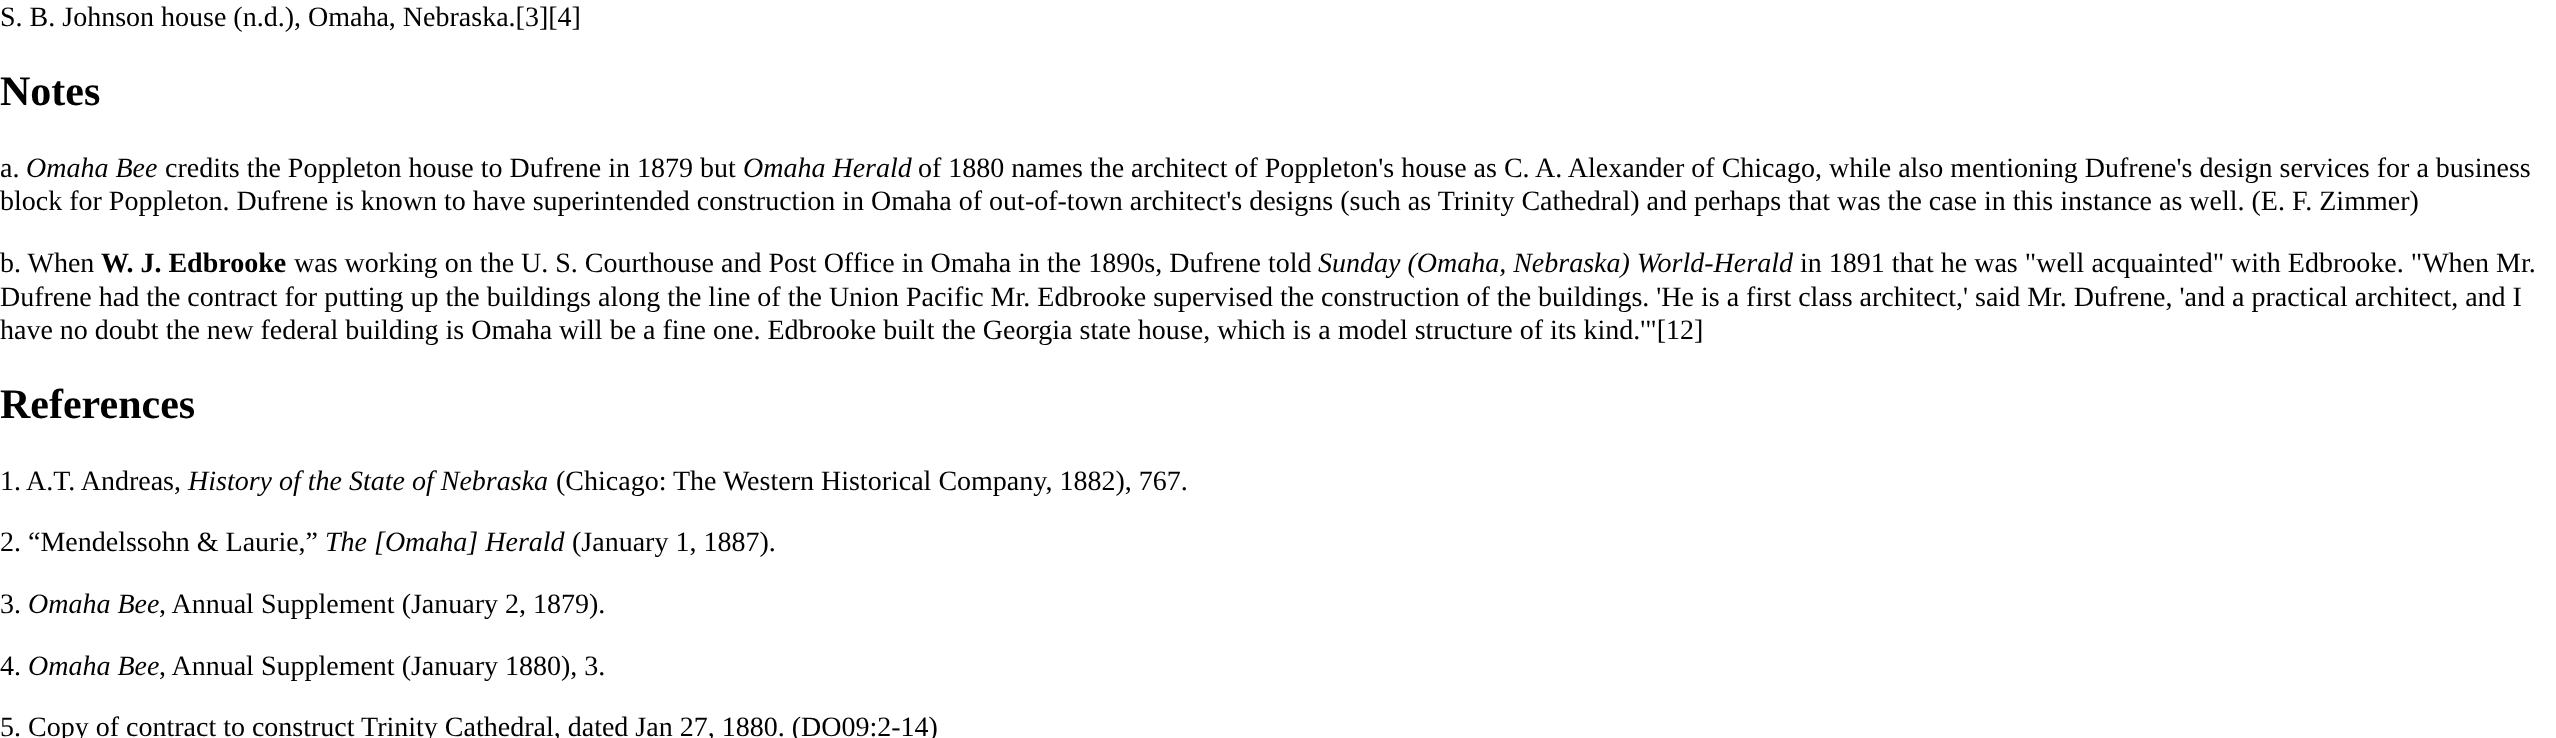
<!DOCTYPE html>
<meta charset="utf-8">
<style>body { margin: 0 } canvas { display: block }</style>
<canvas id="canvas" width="2556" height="738"></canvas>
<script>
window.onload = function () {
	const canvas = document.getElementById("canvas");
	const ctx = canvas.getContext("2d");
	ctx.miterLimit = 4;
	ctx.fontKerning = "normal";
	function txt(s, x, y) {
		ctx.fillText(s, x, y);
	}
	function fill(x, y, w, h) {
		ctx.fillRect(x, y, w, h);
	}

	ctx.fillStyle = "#FFFFFF";
	fill(0, 0, 2556, 738);
	ctx.font = "28px Liberation Serif";
	ctx.fillStyle = "#000000";
	txt("S. B. Johnson house (n.d.), Omaha, Nebraska.[3][4]", 0, 26);
	ctx.font = "bold 42px Liberation Serif";
	txt("Notes", 0, 105);
	ctx.font = "28px Liberation Serif";
	txt("a.", 0, 177);
	ctx.font = "italic 28px Liberation Serif";
	txt("Omaha Bee", 26, 177);
	ctx.font = "28px Liberation Serif";
	txt("credits the Poppleton house to Dufrene in 1879 but", 165, 177);
	ctx.font = "italic 28px Liberation Serif";
	txt("Omaha Herald", 743, 177);
	ctx.font = "28px Liberation Serif";
	txt("of 1880 names the architect of Poppleton's house as C. A. Alexander of Chicago, while also mentioning Dufrene's design services for a business", 918, 177);
	txt("block for Poppleton. Dufrene is known to have superintended construction in Omaha of out-of-town architect's designs (such as Trinity Cathedral) and perhaps that was the case in this instance as well. (E. F. Zimmer)", 0, 210);
	txt("b. When", 0, 272);
	ctx.font = "bold 28px Liberation Serif";
	txt("W. J. Edbrooke", 101, 272);
	ctx.font = "28px Liberation Serif";
	txt("was working on the U. S. Courthouse and Post Office in Omaha in the 1890s, Dufrene told", 294, 272);
	ctx.font = "italic 28px Liberation Serif";
	txt("Sunday (Omaha, Nebraska) World-Herald", 1318, 272);
	ctx.font = "28px Liberation Serif";
	txt("in 1891 that he was \"well acquainted\" with Edbrooke. \"When Mr.", 1800, 272);
	txt("Dufrene had the contract for putting up the buildings along the line of the Union Pacific Mr. Edbrooke supervised the construction of the buildings. 'He is a first class architect,' said Mr. Dufrene, 'and a practical architect, and I", 0, 306);
	txt("have no doubt the new federal building is Omaha will be a fine one. Edbrooke built the Georgia state house, which is a model structure of its kind.'\"[12]", 0, 339);
	ctx.font = "bold 42px Liberation Serif";
	txt("References", 0, 418);
	ctx.font = "28px Liberation Serif";
	txt("1.", 0, 490);
	txt("A.T. Andreas,", 26, 490);
	ctx.font = "italic 28px Liberation Serif";
	txt("History of the State of Nebraska", 188, 490);
	ctx.font = "28px Liberation Serif";
	txt("(Chicago: The Western Historical Company, 1882), 767.", 556, 490);
	txt("2. “Mendelssohn & Laurie,”", 0, 551);
	ctx.font = "italic 28px Liberation Serif";
	txt("The [Omaha] Herald", 325, 551);
	ctx.font = "28px Liberation Serif";
	txt("(January 1, 1887).", 572, 551);
	txt("3.", 0, 613);
	ctx.font = "italic 28px Liberation Serif";
	txt("Omaha Bee", 28, 613);
	ctx.font = "28px Liberation Serif";
	txt(", Annual Supplement (January 2, 1879).", 159, 613);
	txt("4.", 0, 675);
	ctx.font = "italic 28px Liberation Serif";
	txt("Omaha Bee", 28, 675);
	ctx.font = "28px Liberation Serif";
	txt(", Annual Supplement (January 1880), 3.", 159, 675);
	txt("5. Copy of contract to construct Trinity Cathedral, dated Jan 27, 1880. (DO09:2-14)", 0, 736);
};
</script>
